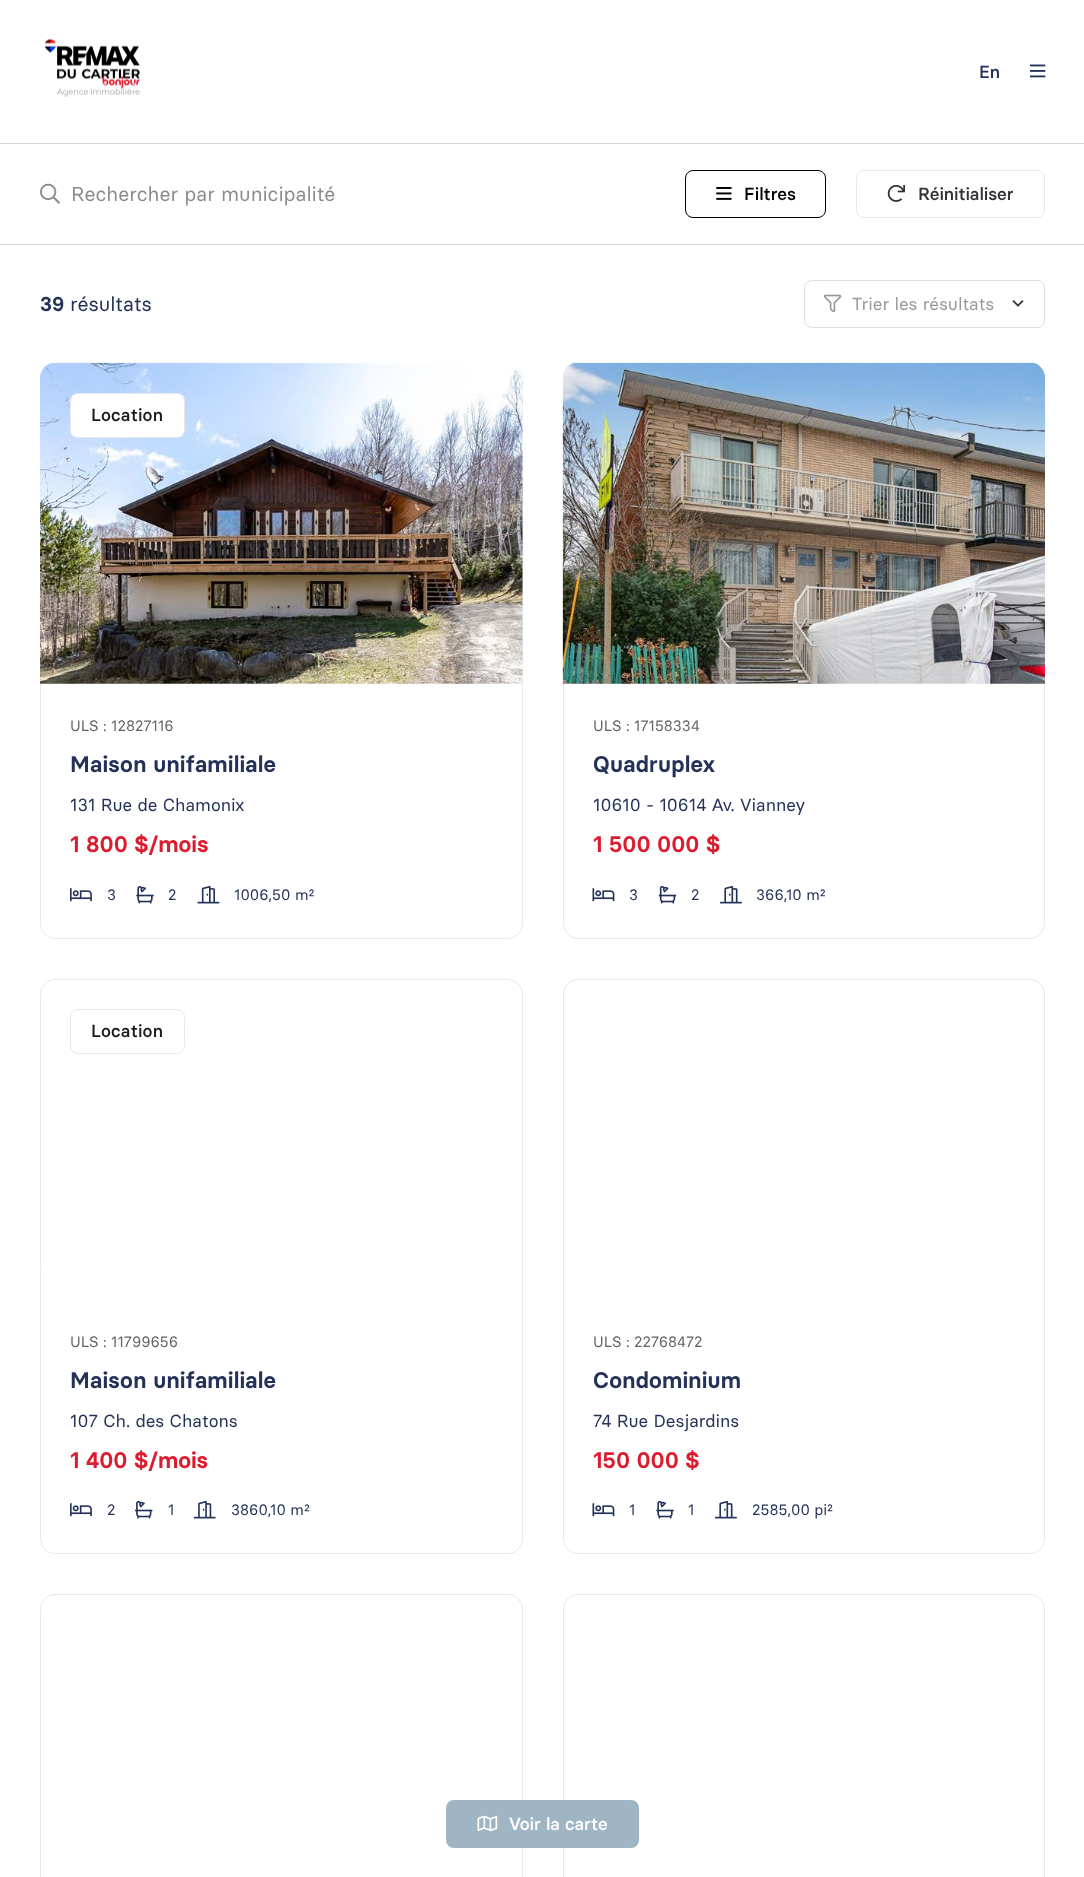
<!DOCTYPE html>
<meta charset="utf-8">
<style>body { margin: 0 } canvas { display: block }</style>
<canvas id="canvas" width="1084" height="1877"></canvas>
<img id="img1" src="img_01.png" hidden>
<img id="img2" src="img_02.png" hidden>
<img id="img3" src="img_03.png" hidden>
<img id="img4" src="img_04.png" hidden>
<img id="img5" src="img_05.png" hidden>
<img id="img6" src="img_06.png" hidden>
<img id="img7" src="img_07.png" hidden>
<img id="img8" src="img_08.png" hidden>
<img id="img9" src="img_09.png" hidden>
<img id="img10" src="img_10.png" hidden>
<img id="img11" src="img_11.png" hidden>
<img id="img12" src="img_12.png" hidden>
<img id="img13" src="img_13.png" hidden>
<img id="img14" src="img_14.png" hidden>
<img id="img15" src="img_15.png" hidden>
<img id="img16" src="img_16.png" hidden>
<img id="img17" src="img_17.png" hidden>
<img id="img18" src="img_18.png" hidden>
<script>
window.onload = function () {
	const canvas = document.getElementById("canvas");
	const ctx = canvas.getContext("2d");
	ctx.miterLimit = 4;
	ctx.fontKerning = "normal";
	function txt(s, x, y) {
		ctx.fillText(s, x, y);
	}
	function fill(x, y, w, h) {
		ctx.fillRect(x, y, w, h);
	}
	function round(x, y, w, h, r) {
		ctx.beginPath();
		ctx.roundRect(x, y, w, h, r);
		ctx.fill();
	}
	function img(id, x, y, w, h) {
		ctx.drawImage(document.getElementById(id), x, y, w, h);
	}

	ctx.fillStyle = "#FFFFFF";
	fill(0, 0, 1084, 1877);
	img("img1", 44, 39, 96, 58);
	img("img2", 1030, 64, 16, 14);
	ctx.fillStyle = "#D3D6DE";
	fill(0, 143, 1084, 1);
	fill(0, 244, 1084, 1);
	img("img3", 40, 183, 20, 21);
	ctx.beginPath();
	ctx.roundRect(685.5, 170.5, 140, 47, 7.5);
	ctx.strokeStyle = "#000000";
	ctx.stroke();
	img("img4", 716, 187, 16, 13);
	ctx.beginPath();
	ctx.roundRect(856.5, 170.5, 188, 47, 7.5);
	ctx.strokeStyle = "#E8E8E9";
	ctx.stroke();
	img("img5", 887, 184, 18, 18);
	ctx.beginPath();
	ctx.roundRect(804.5, 280.5, 240, 47, 7.5);
	ctx.strokeStyle = "#DEDFE3";
	ctx.stroke();
	img("img6", 823, 294, 19, 19);
	img("img7", 1012, 300, 12, 7);
	ctx.beginPath();
	ctx.roundRect(40.5, 363.5, 482, 575, 14.5);
	ctx.strokeStyle = "#E8E8E9";
	ctx.stroke();
	img("img8", 40, 362, 483, 322);
	ctx.fillStyle = "#FFFFFF";
	round(70, 393, 115, 45, 8);
	ctx.beginPath();
	ctx.roundRect(70.5, 393.5, 114, 44, 7.5);
	ctx.strokeStyle = "rgba(25, 25, 30, 0.1)";
	ctx.stroke();
	img("img9", 70, 888, 22, 14);
	img("img10", 136, 885, 18, 19);
	img("img11", 197, 885, 23, 19);
	ctx.beginPath();
	ctx.roundRect(563.5, 363.5, 481, 575, 14.5);
	ctx.strokeStyle = "#E8E8E9";
	ctx.stroke();
	img("img12", 562, 362, 483, 322);
	img("img13", 592, 888, 23, 14);
	img("img14", 658, 885, 19, 19);
	img("img15", 720, 886, 22, 18);
	ctx.beginPath();
	ctx.roundRect(40.5, 979.5, 482, 574, 14.5);
	ctx.stroke();
	ctx.beginPath();
	ctx.roundRect(70.5, 1009.5, 114, 44, 7.5);
	ctx.stroke();
	img("img9", 70, 1503, 22, 14);
	img("img16", 135, 1500, 18, 19);
	img("img17", 193, 1500, 23, 19);
	ctx.beginPath();
	ctx.roundRect(563.5, 979.5, 481, 574, 14.5);
	ctx.stroke();
	img("img13", 592, 1503, 23, 14);
	img("img10", 656, 1500, 18, 19);
	img("img15", 715, 1501, 22, 18);
	ctx.beginPath();
	ctx.roundRect(40.5, 1594.5, 482, 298, 14.5);
	ctx.stroke();
	ctx.beginPath();
	ctx.roundRect(563.5, 1594.5, 481, 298, 14.5);
	ctx.stroke();
	ctx.fillStyle = "#9FB5C4";
	round(446, 1800, 193, 48, 8);
	img("img18", 477, 1815, 21, 17);
	ctx.font = "500 17.5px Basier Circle";
	ctx.fillStyle = "#243259";
	txt("En", 979, 78);
	ctx.font = "20px Basier Circle";
	ctx.fillStyle = "#8C8C8F";
	txt("Rechercher par municipalité", 71, 201);
	ctx.font = "500 17.5px Basier Circle";
	ctx.fillStyle = "#000000";
	txt("Filtres", 744, 200);
	ctx.fillStyle = "#313236";
	txt("Réinitialiser", 918, 200);
	ctx.font = "600 20px Basier Circle";
	ctx.fillStyle = "#243259";
	txt("39", 40, 311);
	ctx.font = "20px Basier Circle";
	txt("résultats", 70, 311);
	ctx.font = "17.5px Basier Circle";
	ctx.fillStyle = "#98999B";
	txt("Trier les résultats", 852, 310);
	ctx.letterSpacing = "0.25px";
	ctx.font = "500 17.5px Basier Circle";
	ctx.fillStyle = "#19191E";
	txt("Location", 91, 421);
	ctx.letterSpacing = "0px";
	ctx.font = "15px Basier Circle";
	ctx.fillStyle = "#636368";
	txt("ULS : 12827116", 70, 731);
	ctx.letterSpacing = "0.25px";
	ctx.font = "600 22.5px Basier Circle";
	ctx.fillStyle = "#243259";
	txt("Maison unifamiliale", 70, 772);
	ctx.letterSpacing = "0px";
	ctx.font = "17.5px Basier Circle";
	txt("131 Rue de Chamonix", 70, 811);
	ctx.font = "600 22.5px Basier Circle";
	ctx.fillStyle = "#DC1C2E";
	txt("1 800 $/mois", 70, 852);
	ctx.font = "15px Basier Circle";
	ctx.fillStyle = "#243259";
	txt("3", 107, 900);
	txt("2", 168, 900);
	txt("1006,50 m²", 234, 900);
	ctx.fillStyle = "#636368";
	txt("ULS : 17158334", 593, 731);
	ctx.letterSpacing = "0.25px";
	ctx.font = "600 22.5px Basier Circle";
	ctx.fillStyle = "#243259";
	txt("Quadruplex", 593, 772);
	ctx.letterSpacing = "0px";
	ctx.font = "17.5px Basier Circle";
	txt("10610 - 10614 Av. Vianney", 593, 811);
	ctx.font = "600 22.5px Basier Circle";
	ctx.fillStyle = "#DC1C2E";
	txt("1 500 000 $", 593, 852);
	ctx.font = "15px Basier Circle";
	ctx.fillStyle = "#243259";
	txt("3", 629, 900);
	txt("2", 691, 900);
	txt("366,10 m²", 756, 900);
	ctx.letterSpacing = "0.25px";
	ctx.font = "500 17.5px Basier Circle";
	ctx.fillStyle = "#19191E";
	txt("Location", 91, 1037);
	ctx.letterSpacing = "0px";
	ctx.font = "15px Basier Circle";
	ctx.fillStyle = "#636368";
	txt("ULS : 11799656", 70, 1347);
	ctx.letterSpacing = "0.25px";
	ctx.font = "600 22.5px Basier Circle";
	ctx.fillStyle = "#243259";
	txt("Maison unifamiliale", 70, 1388);
	ctx.letterSpacing = "0px";
	ctx.font = "17.5px Basier Circle";
	txt("107 Ch. des Chatons", 70, 1427);
	ctx.font = "600 22.5px Basier Circle";
	ctx.fillStyle = "#DC1C2E";
	txt("1 400 $/mois", 70, 1468);
	ctx.font = "15px Basier Circle";
	ctx.fillStyle = "#243259";
	txt("2", 107, 1515);
	txt("1", 168, 1515);
	txt("3860,10 m²", 231, 1515);
	ctx.fillStyle = "#636368";
	txt("ULS : 22768472", 593, 1347);
	ctx.letterSpacing = "0.25px";
	ctx.font = "600 22.5px Basier Circle";
	ctx.fillStyle = "#243259";
	txt("Condominium", 593, 1388);
	ctx.letterSpacing = "0px";
	ctx.font = "17.5px Basier Circle";
	txt("74 Rue Desjardins", 593, 1427);
	ctx.font = "600 22.5px Basier Circle";
	ctx.fillStyle = "#DC1C2E";
	txt("150 000 $", 593, 1468);
	ctx.font = "15px Basier Circle";
	ctx.fillStyle = "#243259";
	txt("1", 629, 1515);
	txt("1", 688, 1515);
	txt("2585,00 pi²", 752, 1515);
	ctx.font = "500 17.5px Basier Circle";
	ctx.fillStyle = "#FFFFFF";
	txt("Voir la carte", 509, 1830);
};
</script>
